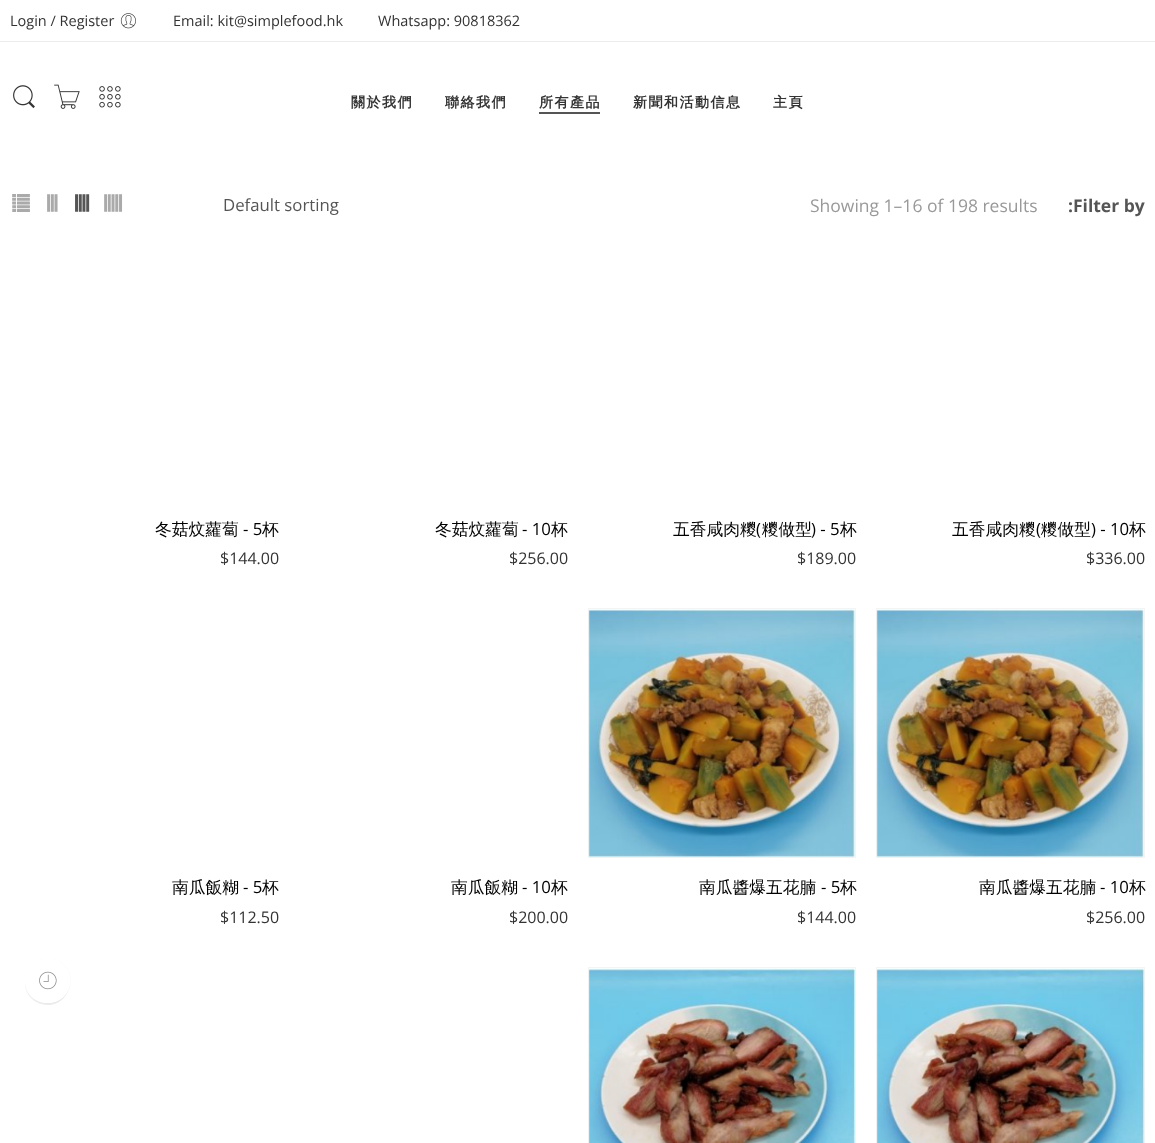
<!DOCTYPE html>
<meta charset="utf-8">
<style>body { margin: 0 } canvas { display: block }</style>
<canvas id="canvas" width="1155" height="1143"></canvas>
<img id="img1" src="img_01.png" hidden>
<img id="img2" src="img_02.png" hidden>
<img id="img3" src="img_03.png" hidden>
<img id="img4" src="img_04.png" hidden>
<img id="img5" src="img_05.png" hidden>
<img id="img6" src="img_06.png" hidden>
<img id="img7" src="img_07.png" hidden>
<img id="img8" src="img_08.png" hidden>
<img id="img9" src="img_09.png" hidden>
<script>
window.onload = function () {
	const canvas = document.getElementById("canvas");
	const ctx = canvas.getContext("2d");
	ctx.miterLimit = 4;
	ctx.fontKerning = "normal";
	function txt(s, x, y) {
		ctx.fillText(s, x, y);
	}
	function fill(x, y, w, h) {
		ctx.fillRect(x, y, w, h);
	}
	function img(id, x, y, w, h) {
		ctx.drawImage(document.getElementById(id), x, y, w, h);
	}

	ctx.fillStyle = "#FFFFFF";
	fill(0, 0, 1155, 1143);
	ctx.fillStyle = "#ECECEC";
	fill(0, 41, 1155, 1);
	img("img1", 120, 13, 16, 16);
	img("img2", 13, 85, 22, 24);
	img("img3", 54, 84, 26, 25);
	img("img4", 99, 86, 22, 22);
	ctx.fillStyle = "#555555";
	fill(539, 112, 61, 2);
	ctx.strokeStyle = "#F4F4F4";
	ctx.strokeRect(588.5, 608.5, 267, 249);
	img("img5", 588, 609, 267, 249);
	ctx.strokeRect(876.5, 608.5, 268, 249);
	img("img6", 876, 609, 268, 249);
	ctx.strokeRect(588.5, 967.5, 267, 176);
	img("img7", 588, 968, 267, 175);
	ctx.strokeRect(876.5, 967.5, 268, 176);
	img("img8", 876, 968, 269, 175);
	ctx.beginPath();
	ctx.arc(48, 981, 22.75, 0, Math.PI * 2);
	ctx.strokeStyle = "#F8F8F8";
	ctx.lineWidth = 0.5;
	ctx.stroke();
	ctx.fillStyle = "rgba(0, 0, 0, 0.07)";
	ctx.beginPath();
	ctx.moveTo(70, 982);
	ctx.bezierCurveTo(69, 1010, 26, 1010, 25, 982);
	ctx.bezierCurveTo(24, 1004, 54, 1014, 66, 995);
	ctx.bezierCurveTo(69, 991, 70, 986, 70, 982);
	ctx.closePath();
	ctx.fill();
	ctx.fillStyle = "#FFFFFF";
	ctx.beginPath();
	ctx.arc(47.5, 980.5, 22.5, 0, Math.PI * 2);
	ctx.fill();
	img("img9", 39, 971, 18, 19);
	ctx.font = "14.5px Open Sans";
	ctx.fillStyle = "#333333";
	txt("Login / Register", 10, 26);
	txt("Email: kit@simplefood.hk", 173, 26);
	txt("Whatsapp: 90818362", 378, 26);
	ctx.letterSpacing = "1.5px";
	ctx.font = "bold 14px WenQuanYi Zen Hei";
	txt("關於我們", 351, 107);
	txt("聯絡我們", 445, 107);
	txt("所有產品", 539, 107);
	txt("新聞和活動信息", 633, 107);
	txt("主頁", 773, 107);
	ctx.letterSpacing = "0px";
	ctx.font = "22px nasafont";
	ctx.fillStyle = "#AAAAAA";
	txt("#", 10, 214);
	txt("8", 41, 214);
	ctx.fillStyle = "#555555";
	txt("9", 71, 214);
	ctx.fillStyle = "#AAAAAA";
	txt("!", 102, 214);
	ctx.font = "16.75px Open Sans";
	ctx.fillStyle = "#555555";
	txt("Default sorting", 223, 211);
	ctx.font = "17.5px Open Sans";
	ctx.fillStyle = "#999999";
	txt("Showing 1–16 of 198 results", 810, 212);
	ctx.font = "bold 17.5px Open Sans";
	ctx.fillStyle = "#555555";
	txt(":Filter by", 1068, 212);
	ctx.font = "500 16.75px WenQuanYi Zen Hei";
	ctx.fillStyle = "#000000";
	txt("冬菇炆蘿蔔", 155, 535);
	ctx.font = "16.75px Open Sans";
	txt("- 5", 243, 535);
	ctx.font = "500 16.75px WenQuanYi Zen Hei";
	txt("杯", 262, 535);
	ctx.font = "16px Open Sans";
	ctx.fillStyle = "#333333";
	txt("$144.00", 220, 564);
	ctx.font = "500 16.75px WenQuanYi Zen Hei";
	ctx.fillStyle = "#000000";
	txt("冬菇炆蘿蔔", 435, 535);
	ctx.font = "16.75px Open Sans";
	txt("- 10", 522, 535);
	ctx.font = "500 16.75px WenQuanYi Zen Hei";
	txt("杯", 551, 535);
	ctx.font = "16px Open Sans";
	ctx.fillStyle = "#333333";
	txt("$256.00", 509, 564);
	ctx.font = "500 16.75px WenQuanYi Zen Hei";
	ctx.fillStyle = "#000000";
	txt("五香咸肉糭 糭做型", 673, 535);
	txt("杯", 840, 535);
	ctx.font = "16.75px Open Sans";
	txt("(", 756, 535);
	txt(") - 5", 811, 535);
	ctx.font = "16px Open Sans";
	ctx.fillStyle = "#333333";
	txt("$189.00", 797, 564);
	ctx.font = "500 16.75px WenQuanYi Zen Hei";
	ctx.fillStyle = "#000000";
	txt("五香咸肉糭 糭做型", 952, 535);
	ctx.font = "16.75px Open Sans";
	txt(") - 10", 1091, 535);
	ctx.font = "500 16.75px WenQuanYi Zen Hei";
	txt("杯", 1129, 535);
	ctx.font = "16.75px Open Sans";
	txt("(", 1036, 535);
	ctx.font = "16px Open Sans";
	ctx.fillStyle = "#333333";
	txt("$336.00", 1086, 564);
	ctx.font = "500 16.75px WenQuanYi Zen Hei";
	ctx.fillStyle = "#000000";
	txt("南瓜飯糊", 172, 893);
	ctx.font = "16.75px Open Sans";
	txt("- 5", 243, 893);
	ctx.font = "500 16.75px WenQuanYi Zen Hei";
	txt("杯", 262, 893);
	ctx.font = "16px Open Sans";
	ctx.fillStyle = "#333333";
	txt("$112.50", 220, 923);
	ctx.font = "500 16.75px WenQuanYi Zen Hei";
	ctx.fillStyle = "#000000";
	txt("南瓜飯糊", 451, 893);
	ctx.font = "16.75px Open Sans";
	txt("- 10", 522, 893);
	ctx.font = "500 16.75px WenQuanYi Zen Hei";
	txt("杯", 551, 893);
	ctx.font = "16px Open Sans";
	ctx.fillStyle = "#333333";
	txt("$200.00", 509, 923);
	ctx.font = "500 16.75px WenQuanYi Zen Hei";
	ctx.fillStyle = "#000000";
	txt("南瓜醬爆五花腩", 699, 893);
	ctx.font = "16.75px Open Sans";
	txt("- 5", 821, 893);
	ctx.font = "500 16.75px WenQuanYi Zen Hei";
	txt("杯", 840, 893);
	ctx.font = "16px Open Sans";
	ctx.fillStyle = "#333333";
	txt("$144.00", 797, 923);
	ctx.font = "500 16.75px WenQuanYi Zen Hei";
	ctx.fillStyle = "#000000";
	txt("南瓜醬爆五花腩", 979, 893);
	ctx.font = "16.75px Open Sans";
	txt("- 10", 1100, 893);
	ctx.font = "500 16.75px WenQuanYi Zen Hei";
	txt("杯", 1129, 893);
	ctx.font = "16px Open Sans";
	ctx.fillStyle = "#333333";
	txt("$256.00", 1086, 923);
};
</script>
